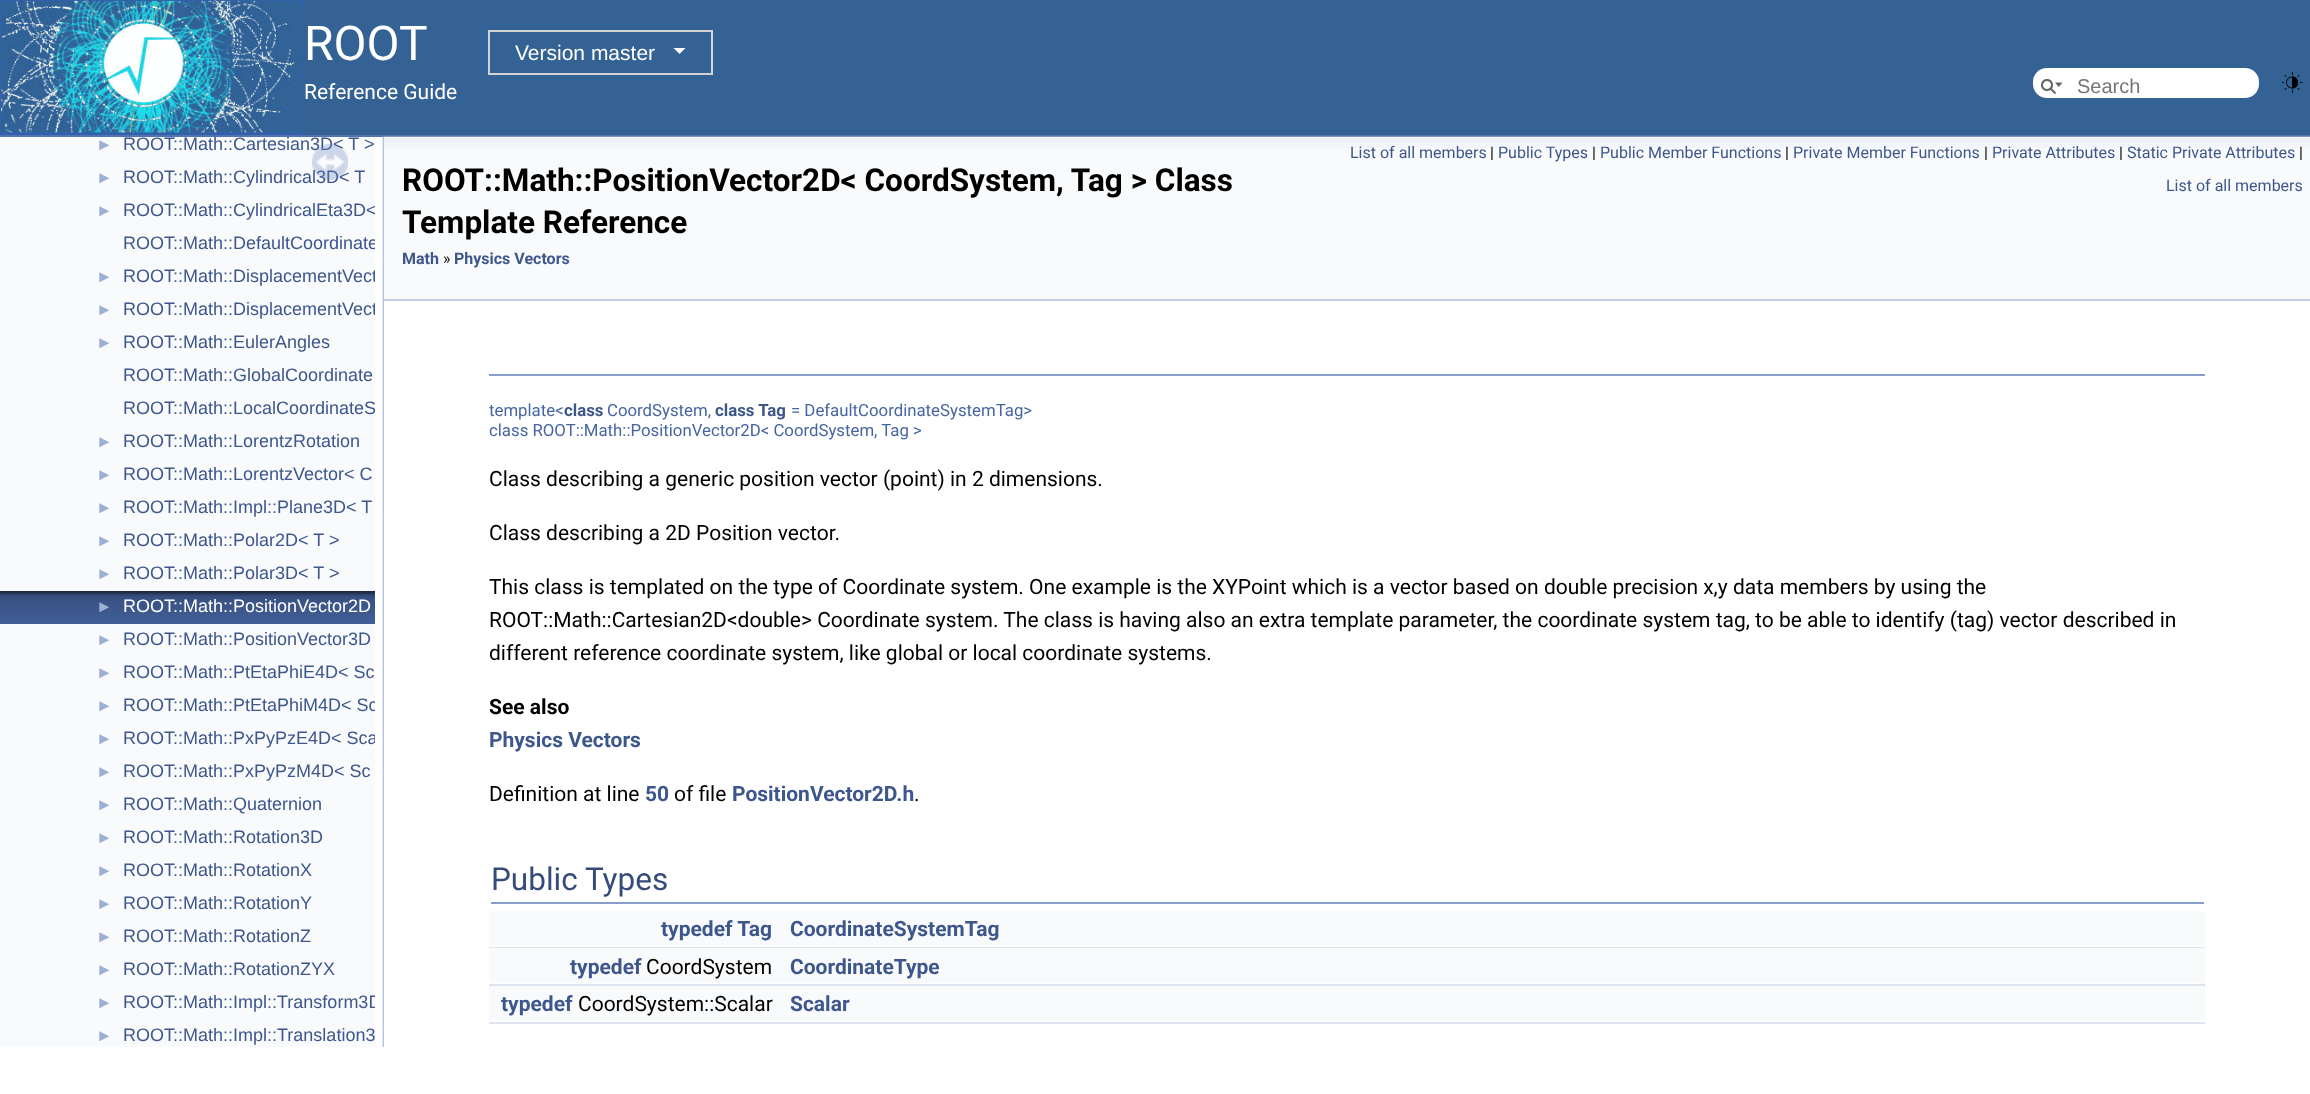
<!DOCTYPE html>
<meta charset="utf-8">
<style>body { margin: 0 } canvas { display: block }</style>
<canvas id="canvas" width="2310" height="1094"></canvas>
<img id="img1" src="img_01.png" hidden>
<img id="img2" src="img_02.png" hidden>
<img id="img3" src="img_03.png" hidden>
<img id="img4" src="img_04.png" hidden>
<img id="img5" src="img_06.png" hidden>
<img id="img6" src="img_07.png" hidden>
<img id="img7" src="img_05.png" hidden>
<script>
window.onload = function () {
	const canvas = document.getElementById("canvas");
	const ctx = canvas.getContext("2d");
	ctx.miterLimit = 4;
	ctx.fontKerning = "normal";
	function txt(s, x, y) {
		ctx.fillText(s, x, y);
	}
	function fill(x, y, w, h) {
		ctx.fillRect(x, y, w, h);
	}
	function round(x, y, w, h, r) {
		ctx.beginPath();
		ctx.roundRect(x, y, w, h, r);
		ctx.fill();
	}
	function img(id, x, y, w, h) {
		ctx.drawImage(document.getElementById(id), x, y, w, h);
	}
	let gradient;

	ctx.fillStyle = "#FFFFFF";
	fill(0, 0, 2310, 1094);
	ctx.fillStyle = "#5373B4";
	fill(0, 135, 2310, 2);
	ctx.fillStyle = "#346295";
	fill(304, 0, 2006, 135);
	gradient = ctx.createLinearGradient(152, 106, 152, 131);
	gradient.addColorStop(0, "#346295");
	gradient.addColorStop(0.94, "#346295");
	gradient.addColorStop(1, "#3D578C");
	ctx.fillStyle = gradient;
	fill(304, 130, 1, 1);
	img("img1", 0, 0, 305, 135);
	ctx.strokeStyle = "#D3D3D3";
	ctx.lineWidth = 2;
	ctx.strokeRect(489, 31, 223, 43);
	ctx.fillStyle = "#FFFFFF";
	ctx.beginPath();
	ctx.moveTo(673.5, 48);
	ctx.lineTo(685.5, 48);
	ctx.lineTo(679.5, 54);
	ctx.closePath();
	ctx.fill();
	round(2033, 68, 226, 30, 14);
	img("img2", 2041, 79, 22, 15);
	img("img3", 2282, 72, 21, 21);
	ctx.fillStyle = "#F9FAFC";
	fill(0, 137, 375, 910);
	img("img4", 0, 591, 375, 33);
	img("img5", 382, 136, 2, 911);
	fill(384, 148, 1926, 151);
	img("img6", 384, 136, 1926, 12);
	ctx.fillStyle = "#C4CFE5";
	fill(384, 299, 1926, 2);
	ctx.fillStyle = "#879ECB";
	fill(489, 374, 1716, 2);
	fill(491, 902, 1713, 2);
	ctx.fillStyle = "#F9FAFC";
	fill(489, 911, 1716, 34);
	ctx.fillStyle = "#DEE4F0";
	fill(489, 947, 1716, 1);
	ctx.fillStyle = "#F9FAFC";
	fill(489, 948, 1716, 35);
	ctx.fillStyle = "#DEE4F0";
	fill(489, 984, 1716, 2);
	ctx.fillStyle = "#F9FAFC";
	fill(489, 986, 1716, 34);
	ctx.fillStyle = "#DEE4F0";
	fill(489, 1022, 1716, 2);
	ctx.font = "48px Roboto";
	ctx.fillStyle = "#FFFFFF";
	txt("ROOT", 304, 60);
	ctx.font = "21px Liberation Sans";
	txt("Version master", 515, 60);
	ctx.font = "21px Roboto";
	txt("Reference Guide", 304, 99);
	ctx.font = "20px Liberation Sans";
	ctx.fillStyle = "#757575";
	txt("Search", 2077, 93);
	ctx.font = "16.8px Liberation Sans";
	ctx.fillStyle = "#9CAFD4";
	txt("►", 96, 150);
	ctx.font = "18px Liberation Sans";
	ctx.fillStyle = "#3D578C";
	txt("ROOT::Math::Cartesian3D< T >", 123, 150);
	ctx.font = "16.8px Liberation Sans";
	ctx.fillStyle = "#9CAFD4";
	txt("►", 96, 183);
	ctx.font = "18px Liberation Sans";
	ctx.fillStyle = "#3D578C";
	txt("ROOT::Math::Cylindrical3D< T", 123, 183);
	ctx.font = "16.8px Liberation Sans";
	ctx.fillStyle = "#9CAFD4";
	txt("►", 96, 216);
	ctx.save();
	ctx.beginPath();
	ctx.rect(0, 137, 375, 910);
	ctx.clip();
	ctx.font = "18px Liberation Sans";
	ctx.fillStyle = "#3D578C";
	txt("ROOT::Math::CylindricalEta3D<", 123, 216);
	txt("ROOT::Math::DefaultCoordinate", 123, 249);
	ctx.restore();
	txt("►", 96, 282);
	ctx.save();
	ctx.beginPath();
	ctx.rect(0, 137, 375, 910);
	ctx.clip();
	ctx.font = "18px Liberation Sans";
	ctx.fillStyle = "#3D578C";
	txt("ROOT::Math::DisplacementVect", 123, 282);
	ctx.restore();
	txt("►", 96, 315);
	ctx.save();
	ctx.beginPath();
	ctx.rect(0, 137, 375, 910);
	ctx.clip();
	ctx.font = "18px Liberation Sans";
	ctx.fillStyle = "#3D578C";
	txt("ROOT::Math::DisplacementVect", 123, 315);
	ctx.restore();
	txt("►", 96, 348);
	ctx.font = "18px Liberation Sans";
	ctx.fillStyle = "#3D578C";
	txt("ROOT::Math::EulerAngles", 123, 348);
	txt("ROOT::Math::GlobalCoordinate", 123, 381);
	ctx.save();
	ctx.beginPath();
	ctx.rect(0, 137, 375, 910);
	ctx.clip();
	txt("ROOT::Math::LocalCoordinateS", 123, 414);
	ctx.restore();
	ctx.font = "16.8px Liberation Sans";
	ctx.fillStyle = "#9CAFD4";
	txt("►", 96, 447);
	ctx.font = "18px Liberation Sans";
	ctx.fillStyle = "#3D578C";
	txt("ROOT::Math::LorentzRotation", 123, 447);
	ctx.font = "16.8px Liberation Sans";
	ctx.fillStyle = "#9CAFD4";
	txt("►", 96, 480);
	ctx.font = "18px Liberation Sans";
	ctx.fillStyle = "#3D578C";
	txt("ROOT::Math::LorentzVector< C", 123, 480);
	ctx.font = "16.8px Liberation Sans";
	ctx.fillStyle = "#9CAFD4";
	txt("►", 96, 513);
	ctx.font = "18px Liberation Sans";
	ctx.fillStyle = "#3D578C";
	txt("ROOT::Math::Impl::Plane3D< T", 123, 513);
	ctx.font = "16.8px Liberation Sans";
	ctx.fillStyle = "#9CAFD4";
	txt("►", 96, 546);
	ctx.font = "18px Liberation Sans";
	ctx.fillStyle = "#3D578C";
	txt("ROOT::Math::Polar2D< T >", 123, 546);
	ctx.font = "16.8px Liberation Sans";
	ctx.fillStyle = "#9CAFD4";
	txt("►", 96, 579);
	ctx.font = "18px Liberation Sans";
	ctx.fillStyle = "#3D578C";
	txt("ROOT::Math::Polar3D< T >", 123, 579);
	ctx.font = "16.8px Liberation Sans";
	ctx.fillStyle = "#9CAFD4";
	txt("►", 96, 612);
	ctx.font = "18px Liberation Sans";
	ctx.fillStyle = "#FFFFFF";
	txt("ROOT::Math::PositionVector2D", 123, 612);
	ctx.font = "16.8px Liberation Sans";
	ctx.fillStyle = "#9CAFD4";
	txt("►", 96, 645);
	ctx.font = "18px Liberation Sans";
	ctx.fillStyle = "#3D578C";
	txt("ROOT::Math::PositionVector3D", 123, 645);
	ctx.font = "16.8px Liberation Sans";
	ctx.fillStyle = "#9CAFD4";
	txt("►", 96, 678);
	ctx.font = "18px Liberation Sans";
	ctx.fillStyle = "#3D578C";
	txt("ROOT::Math::PtEtaPhiE4D< Sc", 123, 678);
	ctx.font = "16.8px Liberation Sans";
	ctx.fillStyle = "#9CAFD4";
	txt("►", 96, 711);
	ctx.save();
	ctx.beginPath();
	ctx.rect(0, 137, 375, 910);
	ctx.clip();
	ctx.font = "18px Liberation Sans";
	ctx.fillStyle = "#3D578C";
	txt("ROOT::Math::PtEtaPhiM4D< Sc", 123, 711);
	ctx.restore();
	txt("►", 96, 744);
	ctx.save();
	ctx.beginPath();
	ctx.rect(0, 137, 375, 910);
	ctx.clip();
	ctx.font = "18px Liberation Sans";
	ctx.fillStyle = "#3D578C";
	txt("ROOT::Math::PxPyPzE4D< Sca", 123, 744);
	ctx.restore();
	txt("►", 96, 777);
	ctx.font = "18px Liberation Sans";
	ctx.fillStyle = "#3D578C";
	txt("ROOT::Math::PxPyPzM4D< Sc", 123, 777);
	ctx.font = "16.8px Liberation Sans";
	ctx.fillStyle = "#9CAFD4";
	txt("►", 96, 810);
	ctx.font = "18px Liberation Sans";
	ctx.fillStyle = "#3D578C";
	txt("ROOT::Math::Quaternion", 123, 810);
	ctx.font = "16.8px Liberation Sans";
	ctx.fillStyle = "#9CAFD4";
	txt("►", 96, 843);
	ctx.font = "18px Liberation Sans";
	ctx.fillStyle = "#3D578C";
	txt("ROOT::Math::Rotation3D", 123, 843);
	ctx.font = "16.8px Liberation Sans";
	ctx.fillStyle = "#9CAFD4";
	txt("►", 96, 876);
	ctx.font = "18px Liberation Sans";
	ctx.fillStyle = "#3D578C";
	txt("ROOT::Math::RotationX", 123, 876);
	ctx.font = "16.8px Liberation Sans";
	ctx.fillStyle = "#9CAFD4";
	txt("►", 96, 909);
	ctx.font = "18px Liberation Sans";
	ctx.fillStyle = "#3D578C";
	txt("ROOT::Math::RotationY", 123, 909);
	ctx.font = "16.8px Liberation Sans";
	ctx.fillStyle = "#9CAFD4";
	txt("►", 96, 942);
	ctx.font = "18px Liberation Sans";
	ctx.fillStyle = "#3D578C";
	txt("ROOT::Math::RotationZ", 123, 942);
	ctx.font = "16.8px Liberation Sans";
	ctx.fillStyle = "#9CAFD4";
	txt("►", 96, 975);
	ctx.font = "18px Liberation Sans";
	ctx.fillStyle = "#3D578C";
	txt("ROOT::Math::RotationZYX", 123, 975);
	ctx.font = "16.8px Liberation Sans";
	ctx.fillStyle = "#9CAFD4";
	txt("►", 96, 1008);
	ctx.save();
	ctx.beginPath();
	ctx.rect(0, 137, 375, 910);
	ctx.clip();
	ctx.font = "18px Liberation Sans";
	ctx.fillStyle = "#3D578C";
	txt("ROOT::Math::Impl::Transform3D", 123, 1008);
	ctx.restore();
	txt("►", 96, 1041);
	ctx.font = "18px Liberation Sans";
	ctx.fillStyle = "#3D578C";
	txt("ROOT::Math::Impl::Translation3", 123, 1041);
	img("img7", 312, 144, 36, 36);
	ctx.font = "bold 31.5px Roboto";
	ctx.fillStyle = "#000000";
	txt("ROOT::Math::PositionVector2D< CoordSystem, Tag > Class", 402, 191);
	txt("Template Reference", 402, 233);
	ctx.font = "bold 16px Roboto";
	ctx.fillStyle = "#3D578C";
	txt("Math", 402, 264);
	ctx.font = "16px Roboto";
	ctx.fillStyle = "#000000";
	txt("»", 443, 264);
	ctx.font = "bold 16px Roboto";
	ctx.fillStyle = "#3D578C";
	txt("Physics Vectors", 454, 264);
	ctx.font = "16px Roboto";
	txt("List of all members", 1350, 158);
	ctx.fillStyle = "#000000";
	txt("|", 1490, 158);
	ctx.fillStyle = "#3D578C";
	txt("Public Types", 1498, 158);
	ctx.fillStyle = "#000000";
	txt("|", 1592, 158);
	ctx.fillStyle = "#3D578C";
	txt("Public Member Functions", 1600, 158);
	ctx.fillStyle = "#000000";
	txt("|", 1785, 158);
	ctx.fillStyle = "#3D578C";
	txt("Private Member Functions", 1793, 158);
	ctx.fillStyle = "#000000";
	txt("|", 1984, 158);
	ctx.fillStyle = "#3D578C";
	txt("Private Attributes", 1992, 158);
	ctx.fillStyle = "#000000";
	txt("|", 2119, 158);
	ctx.fillStyle = "#3D578C";
	txt("Static Private Attributes", 2127, 158);
	ctx.fillStyle = "#000000";
	txt("|", 2299, 158);
	ctx.fillStyle = "#3D578C";
	txt("List of all members", 2166, 191);
	ctx.font = "16.8px Roboto";
	ctx.fillStyle = "#4665A2";
	txt("template<", 489, 416);
	ctx.font = "bold 16.8px Roboto";
	ctx.fillStyle = "#3D578C";
	txt("class", 564, 416);
	ctx.font = "16.8px Roboto";
	ctx.fillStyle = "#4665A2";
	txt("CoordSystem,", 607, 416);
	ctx.font = "bold 16.8px Roboto";
	ctx.fillStyle = "#3D578C";
	txt("class Tag", 715, 416);
	ctx.font = "16.8px Roboto";
	ctx.fillStyle = "#4665A2";
	txt("= DefaultCoordinateSystemTag>", 791, 416);
	txt("class ROOT::Math::PositionVector2D< CoordSystem, Tag >", 489, 436);
	ctx.font = "21px Roboto";
	ctx.fillStyle = "#000000";
	txt("Class describing a generic position vector (point) in 2 dimensions.", 489, 486);
	txt("Class describing a 2D Position vector.", 489, 540);
	txt("This class is templated on the type of Coordinate system. One example is the XYPoint which is a vector based on double precision x,y data members by using the", 489, 594);
	txt("ROOT::Math::Cartesian2D<double> Coordinate system. The class is having also an extra template parameter, the coordinate system tag, to be able to identify (tag) vector described in", 489, 627);
	txt("different reference coordinate system, like global or local coordinate systems.", 489, 660);
	ctx.font = "bold 21px Roboto";
	txt("See also", 489, 714);
	ctx.fillStyle = "#3D578C";
	txt("Physics Vectors", 489, 747);
	ctx.font = "21px Roboto";
	ctx.fillStyle = "#000000";
	txt("Definition at line", 489, 801);
	ctx.font = "bold 21px Roboto";
	ctx.fillStyle = "#3D578C";
	txt("50", 645, 801);
	ctx.font = "21px Roboto";
	ctx.fillStyle = "#000000";
	txt("of file", 674, 801);
	ctx.font = "bold 21px Roboto";
	ctx.fillStyle = "#3D578C";
	txt("PositionVector2D.h", 732, 801);
	ctx.font = "21px Roboto";
	ctx.fillStyle = "#000000";
	txt(".", 914, 801);
	ctx.font = "31.5px Roboto";
	ctx.fillStyle = "#354C7B";
	txt("Public Types", 491, 890);
	ctx.font = "bold 21px Roboto";
	ctx.fillStyle = "#3D578C";
	txt("typedef Tag", 661, 936);
	txt("CoordinateSystemTag", 790, 936);
	txt("typedef", 570, 974);
	ctx.font = "21px Roboto";
	ctx.fillStyle = "#000000";
	txt("CoordSystem", 646, 974);
	ctx.font = "bold 21px Roboto";
	ctx.fillStyle = "#3D578C";
	txt("CoordinateType", 790, 974);
	txt("typedef", 501, 1011);
	ctx.font = "21px Roboto";
	ctx.fillStyle = "#000000";
	txt("CoordSystem::Scalar", 578, 1011);
	ctx.font = "bold 21px Roboto";
	ctx.fillStyle = "#3D578C";
	txt("Scalar", 790, 1011);
};
</script>
